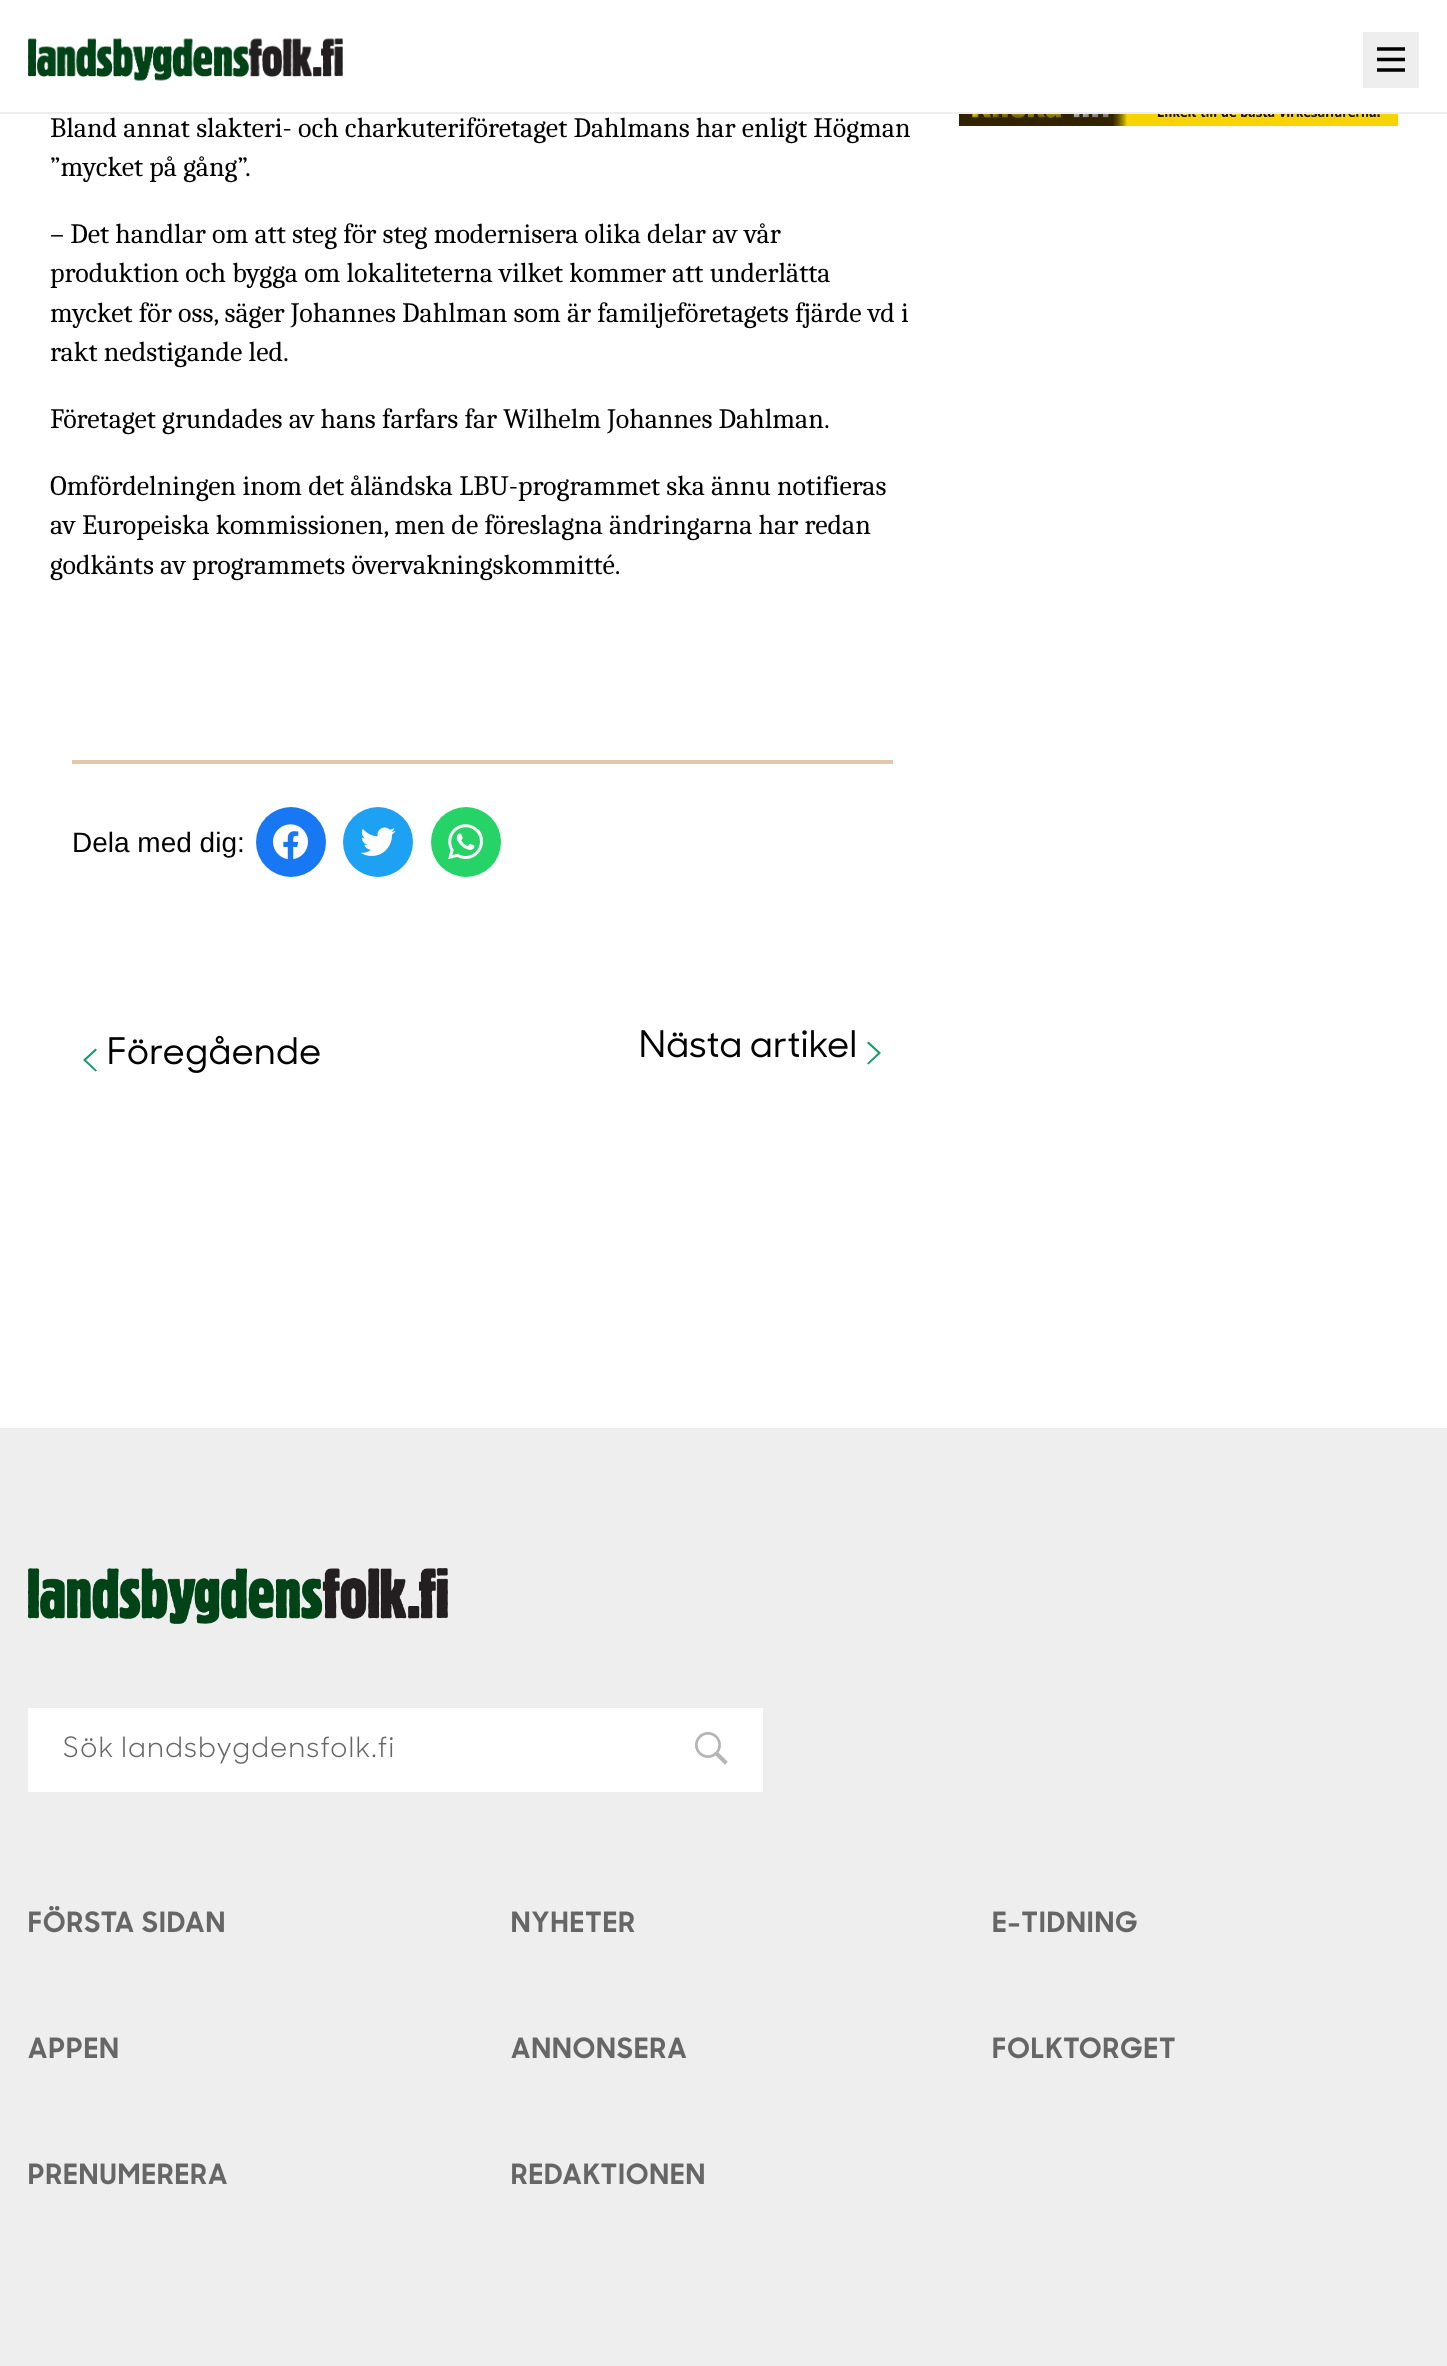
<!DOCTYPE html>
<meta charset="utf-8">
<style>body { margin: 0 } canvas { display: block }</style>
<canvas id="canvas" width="1447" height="2366"></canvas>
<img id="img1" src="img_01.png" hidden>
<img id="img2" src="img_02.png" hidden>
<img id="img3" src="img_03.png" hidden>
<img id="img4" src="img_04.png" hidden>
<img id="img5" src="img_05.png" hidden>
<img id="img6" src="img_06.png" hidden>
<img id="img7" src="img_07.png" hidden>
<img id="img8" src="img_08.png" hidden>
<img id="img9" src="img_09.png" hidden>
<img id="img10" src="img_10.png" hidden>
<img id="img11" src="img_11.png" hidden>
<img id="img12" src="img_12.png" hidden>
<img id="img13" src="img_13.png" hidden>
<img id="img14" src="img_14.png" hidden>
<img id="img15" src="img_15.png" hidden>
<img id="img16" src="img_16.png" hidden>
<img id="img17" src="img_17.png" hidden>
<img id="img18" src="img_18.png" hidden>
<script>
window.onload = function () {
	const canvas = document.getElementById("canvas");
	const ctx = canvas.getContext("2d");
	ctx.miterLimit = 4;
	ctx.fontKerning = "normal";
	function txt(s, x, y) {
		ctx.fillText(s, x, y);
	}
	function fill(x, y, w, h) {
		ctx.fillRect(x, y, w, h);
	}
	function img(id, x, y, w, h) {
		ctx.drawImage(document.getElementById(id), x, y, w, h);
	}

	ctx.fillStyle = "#FFFFFF";
	fill(0, 0, 1447, 2366);
	ctx.fillStyle = "#EEEEEE";
	fill(0, 112, 1447, 2);
	img("img1", 28, 38, 315, 43);
	fill(1363, 32, 56, 56);
	ctx.beginPath();
	ctx.moveTo(1377, 49);
	ctx.lineTo(1405, 49);
	ctx.moveTo(1377, 59.5);
	ctx.lineTo(1405, 59.5);
	ctx.moveTo(1377, 70);
	ctx.lineTo(1405, 70);
	ctx.strokeStyle = "#000000";
	ctx.lineWidth = 3.5;
	ctx.lineJoin = "round";
	ctx.stroke();
	ctx.fillStyle = "#E0C8AB";
	fill(72, 760, 821, 4);
	ctx.fillStyle = "#1877F2";
	ctx.beginPath();
	ctx.arc(291, 842, 35, 0, Math.PI * 2);
	ctx.fill();
	img("img2", 273, 824, 35, 35);
	ctx.fillStyle = "#1DA1F2";
	ctx.beginPath();
	ctx.arc(378, 842, 35, 0, Math.PI * 2);
	ctx.fill();
	img("img3", 361, 827, 35, 29);
	ctx.fillStyle = "#25D366";
	ctx.beginPath();
	ctx.arc(466, 842, 35, 0, Math.PI * 2);
	ctx.fill();
	img("img4", 448, 824, 35, 35);
	ctx.fillStyle = "#159A6C";
	ctx.beginPath();
	ctx.moveTo(97, 1050);
	ctx.lineTo(95.5, 1048.5);
	ctx.lineTo(83, 1060);
	ctx.lineTo(95.5, 1071.5);
	ctx.lineTo(97, 1070.5);
	ctx.lineTo(86, 1060);
	ctx.closePath();
	ctx.fill();
	img("img5", 109, 1035, 211, 38);
	img("img6", 641, 1030, 214, 28);
	ctx.beginPath();
	ctx.moveTo(867, 1043);
	ctx.lineTo(868.5, 1041.5);
	ctx.lineTo(881, 1053);
	ctx.lineTo(868.5, 1064.5);
	ctx.lineTo(867, 1063.5);
	ctx.lineTo(878, 1053);
	ctx.closePath();
	ctx.fill();
	img("img7", 959, 114, 440, 12);
	ctx.fillStyle = "#EEEEEE";
	fill(0, 1428, 1447, 938);
	img("img8", 28, 1568, 420, 56);
	ctx.fillStyle = "#FFFFFF";
	fill(28, 1708, 735, 84);
	img("img9", 64, 1736, 329, 28);
	img("img10", 695, 1732, 33, 33);
	img("img11", 29, 1906, 195, 27);
	img("img12", 512, 1911, 123, 21);
	img("img13", 993, 1911, 144, 22);
	img("img14", 28, 2037, 90, 21);
	img("img15", 511, 2037, 176, 22);
	img("img16", 993, 2037, 182, 22);
	img("img17", 29, 2163, 198, 22);
	img("img18", 512, 2163, 192, 22);
	ctx.font = "28px Caladea";
	ctx.fillStyle = "#000000";
	txt("Bland annat slakteri- och charkuteriföretaget Dahlmans har enligt Högman", 50, 137);
	txt("”mycket på gång”.", 50, 176);
	txt("– Det handlar om att steg för steg modernisera olika delar av vår", 50, 243);
	txt("produktion och bygga om lokaliteterna vilket kommer att underlätta", 50, 282);
	txt("mycket för oss, säger Johannes Dahlman som är familjeföretagets fjärde vd i", 50, 322);
	txt("rakt nedstigande led.", 50, 361);
	txt("Företaget grundades av hans farfars far Wilhelm Johannes Dahlman.", 50, 428);
	txt("Omfördelningen inom det åländska LBU-programmet ska ännu notifieras", 50, 495);
	txt("av Europeiska kommissionen, men de föreslagna ändringarna har redan", 50, 534);
	txt("godkänts av programmets övervakningskommitté.", 50, 574);
	ctx.font = "28px Liberation Sans";
	txt("Dela med dig:", 72, 852);
};
</script>
